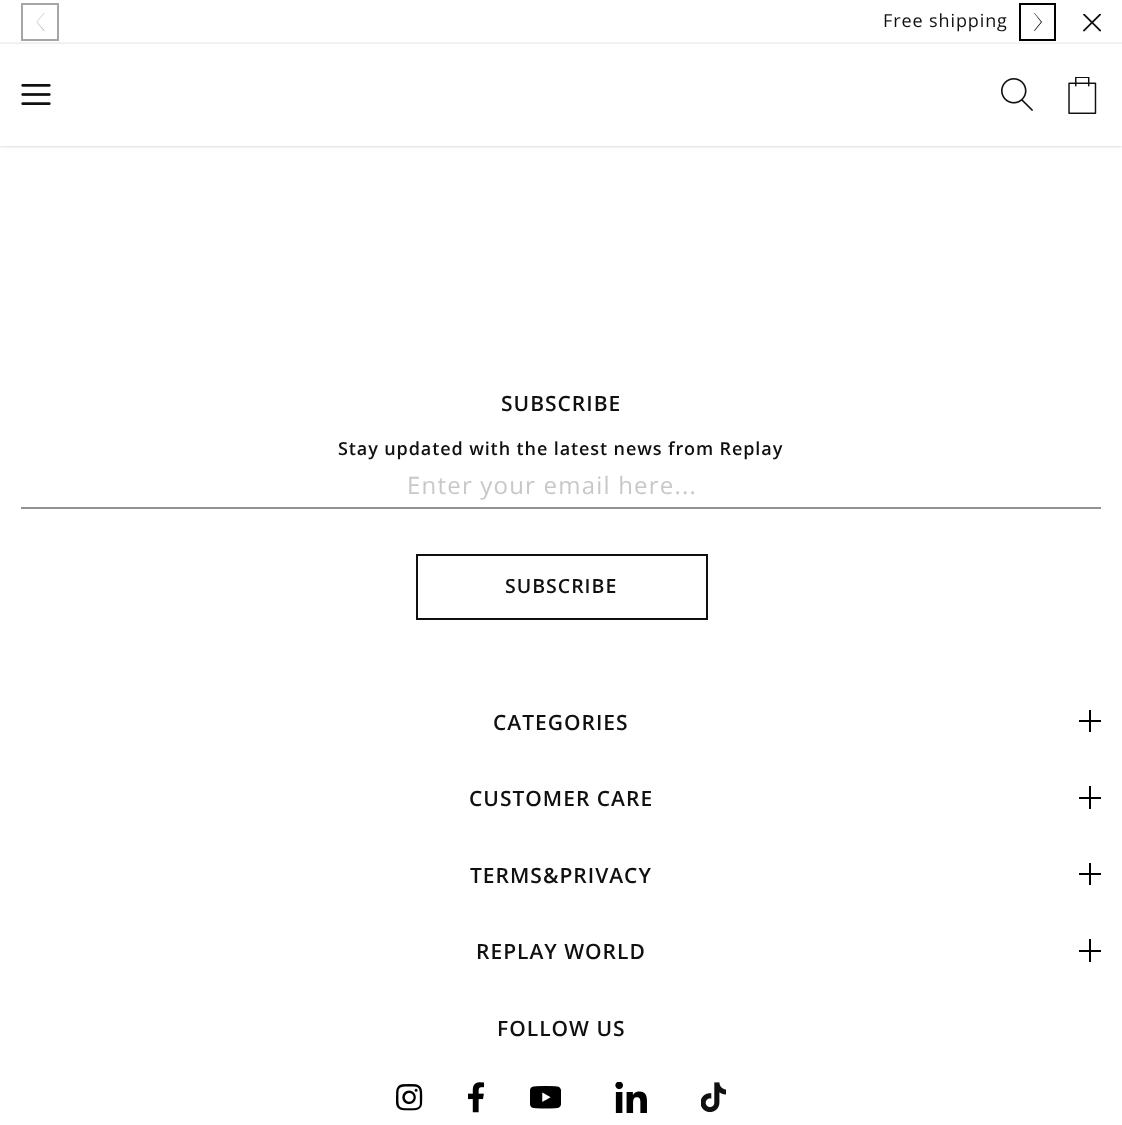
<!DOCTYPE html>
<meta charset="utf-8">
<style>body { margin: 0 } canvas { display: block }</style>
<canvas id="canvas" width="1122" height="1125"></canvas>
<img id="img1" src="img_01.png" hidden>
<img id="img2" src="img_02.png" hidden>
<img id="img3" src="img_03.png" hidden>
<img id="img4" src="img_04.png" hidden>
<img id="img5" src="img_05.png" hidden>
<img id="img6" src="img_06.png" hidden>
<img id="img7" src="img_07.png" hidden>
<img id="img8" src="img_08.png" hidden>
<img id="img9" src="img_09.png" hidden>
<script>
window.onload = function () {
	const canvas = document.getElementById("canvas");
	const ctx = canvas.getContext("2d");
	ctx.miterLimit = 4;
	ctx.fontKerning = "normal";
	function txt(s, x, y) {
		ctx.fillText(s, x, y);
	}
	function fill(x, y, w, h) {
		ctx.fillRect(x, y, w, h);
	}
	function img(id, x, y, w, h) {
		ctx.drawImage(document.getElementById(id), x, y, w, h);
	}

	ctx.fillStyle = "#FFFFFF";
	fill(0, 0, 1122, 1125);
	ctx.fillStyle = "#F2F2F2";
	fill(0, 42, 1122, 2);
	ctx.strokeStyle = "#A6A6A6";
	ctx.lineWidth = 2;
	ctx.strokeRect(22, 4, 36, 36);
	ctx.fillStyle = "#A6A6A6";
	ctx.beginPath();
	ctx.moveTo(44, 31);
	ctx.lineTo(36.5, 22);
	ctx.lineTo(44, 13);
	ctx.lineTo(44.5, 13);
	ctx.lineTo(37, 22);
	ctx.lineTo(44.5, 30.5);
	ctx.closePath();
	ctx.fill();
	ctx.strokeStyle = "#000000";
	ctx.strokeRect(1020, 4, 35, 36);
	ctx.fillStyle = "#000000";
	ctx.beginPath();
	ctx.moveTo(1034.5, 13);
	ctx.lineTo(1042, 22);
	ctx.lineTo(1034.5, 31);
	ctx.lineTo(1034, 30.5);
	ctx.lineTo(1041, 22);
	ctx.lineTo(1034, 13);
	ctx.closePath();
	ctx.fill();
	img("img1", 1083, 14, 18, 18);
	ctx.save();
	ctx.beginPath();
	ctx.moveTo(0, 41);
	ctx.lineTo(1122, 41);
	ctx.lineTo(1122, 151);
	ctx.lineTo(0, 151);
	ctx.closePath();
	ctx.moveTo(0, 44);
	ctx.lineTo(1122, 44);
	ctx.lineTo(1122, 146);
	ctx.lineTo(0, 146);
	ctx.closePath();
	ctx.clip("evenodd");
	ctx.fillStyle = "#DCDCDC";
	ctx.filter = "blur(1px)";
	ctx.beginPath();
	ctx.rect(0, 45, 1122, 102);
	ctx.fill();
	ctx.filter = "none";
	ctx.restore();
	img("img2", 21, 84, 30, 21);
	img("img3", 1001, 78, 32, 33);
	img("img4", 1068, 77, 29, 37);
	ctx.fillStyle = "#919191";
	fill(21, 507, 1080, 2);
	ctx.strokeStyle = "#101010";
	ctx.strokeRect(417, 555, 290, 64);
	ctx.fillStyle = "#000000";
	fill(1079, 720, 22, 2);
	fill(1089, 710, 2, 22);
	fill(1079, 797, 22, 2);
	fill(1089, 786, 2, 23);
	fill(1079, 873, 22, 2);
	fill(1089, 863, 2, 22);
	fill(1079, 950, 22, 2);
	fill(1089, 939, 2, 23);
	img("img5", 396, 1084, 27, 27);
	img("img6", 468, 1082, 17, 31);
	img("img7", 530, 1086, 31, 23);
	img("img8", 615, 1082, 32, 31);
	img("img9", 701, 1082, 25, 31);
	ctx.letterSpacing = "0.9px";
	ctx.font = "18px Open Sans";
	ctx.fillStyle = "#101010";
	txt("Free shipping", 883, 27);
	ctx.letterSpacing = "1px";
	ctx.font = "600 21px Open Sans";
	txt("SUBSCRIBE", 501, 411);
	ctx.letterSpacing = "0.9px";
	ctx.font = "600 18px Open Sans";
	txt("Stay updated with the latest news from Replay", 338, 455);
	ctx.letterSpacing = "1.2px";
	ctx.font = "24px Open Sans";
	ctx.fillStyle = "#C8C8C8";
	txt("Enter your email here...", 407, 494);
	ctx.letterSpacing = "1px";
	ctx.font = "600 19.5px Open Sans";
	ctx.fillStyle = "#101010";
	txt("SUBSCRIBE", 505, 593);
	ctx.font = "600 21px Open Sans";
	txt("CATEGORIES", 493, 730);
	txt("CUSTOMER CARE", 469, 806);
	txt("TERMS&PRIVACY", 470, 883);
	txt("REPLAY WORLD", 476, 959);
	txt("FOLLOW US", 497, 1036);
};
</script>
